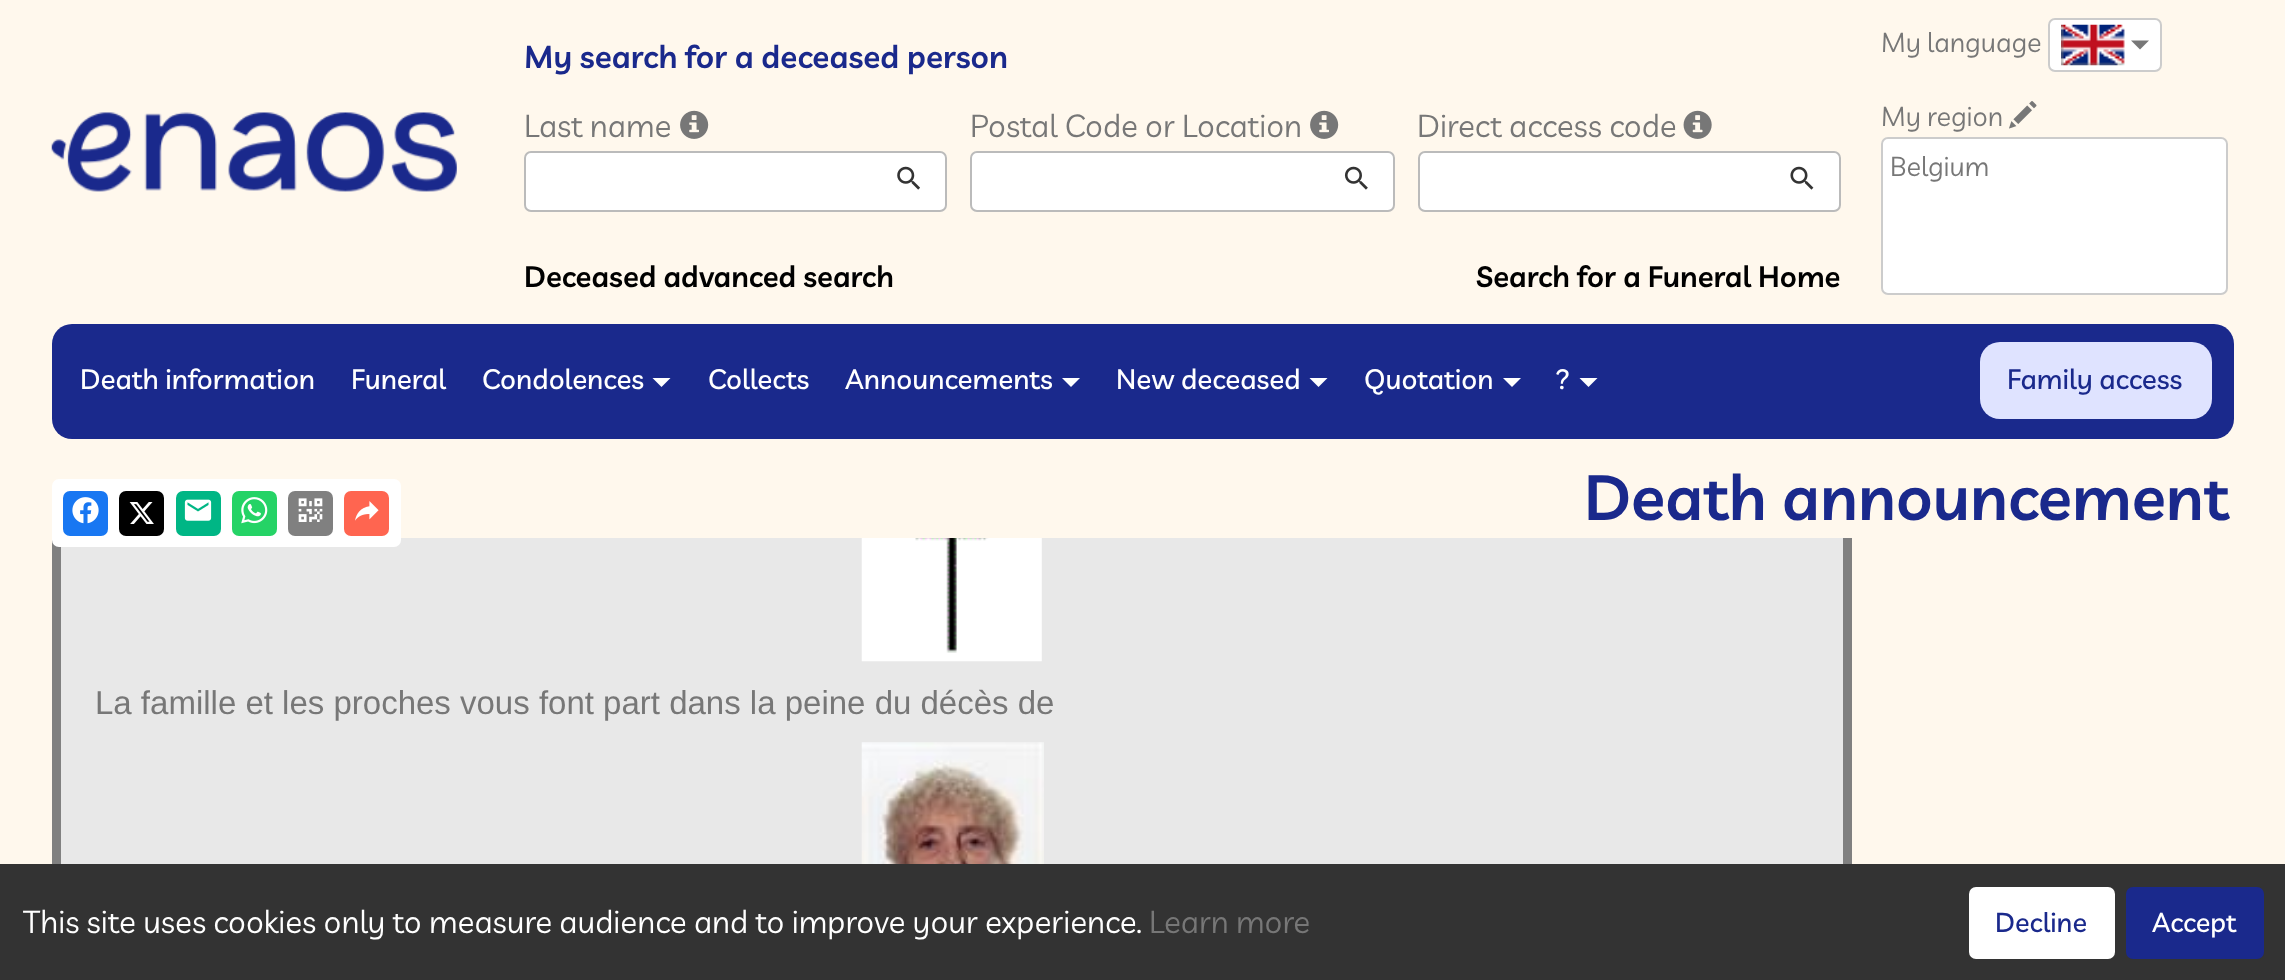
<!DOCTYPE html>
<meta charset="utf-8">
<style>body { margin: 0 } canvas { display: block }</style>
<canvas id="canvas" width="2285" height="980"></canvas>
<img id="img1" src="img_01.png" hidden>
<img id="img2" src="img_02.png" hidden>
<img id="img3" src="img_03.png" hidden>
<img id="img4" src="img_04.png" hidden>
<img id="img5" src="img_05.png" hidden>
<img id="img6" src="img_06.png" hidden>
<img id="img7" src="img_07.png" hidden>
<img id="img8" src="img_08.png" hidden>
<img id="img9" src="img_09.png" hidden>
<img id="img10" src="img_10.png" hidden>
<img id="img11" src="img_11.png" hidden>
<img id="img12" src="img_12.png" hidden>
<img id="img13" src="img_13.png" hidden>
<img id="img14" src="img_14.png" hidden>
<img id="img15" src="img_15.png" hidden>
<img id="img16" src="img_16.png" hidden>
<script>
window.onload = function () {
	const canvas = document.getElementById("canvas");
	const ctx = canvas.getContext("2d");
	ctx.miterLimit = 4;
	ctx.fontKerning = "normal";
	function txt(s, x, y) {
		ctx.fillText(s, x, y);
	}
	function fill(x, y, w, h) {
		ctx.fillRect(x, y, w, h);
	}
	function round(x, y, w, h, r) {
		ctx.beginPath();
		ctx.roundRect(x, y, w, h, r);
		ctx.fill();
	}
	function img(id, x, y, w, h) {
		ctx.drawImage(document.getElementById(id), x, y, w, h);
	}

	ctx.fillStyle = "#FFF8ED";
	fill(0, 0, 2285, 980);
	img("img1", 51, 112, 406, 80);
	img("img2", 680, 110, 29, 29);
	ctx.fillStyle = "#FFFFFF";
	ctx.beginPath();
	ctx.roundRect(525, 152, 421, 59, 6);
	ctx.fill();
	ctx.strokeStyle = "#BBBBBB";
	ctx.lineWidth = 2;
	ctx.stroke();
	img("img3", 897, 166, 23, 24);
	img("img2", 1310, 110, 29, 29);
	ctx.beginPath();
	ctx.roundRect(971, 152, 423, 59, 6);
	ctx.fill();
	ctx.stroke();
	img("img4", 1344, 166, 24, 24);
	img("img5", 1683, 110, 29, 29);
	ctx.beginPath();
	ctx.roundRect(1419, 152, 421, 59, 6);
	ctx.fill();
	ctx.stroke();
	img("img6", 1790, 166, 24, 24);
	ctx.beginPath();
	ctx.roundRect(2049, 19, 112, 52, 6);
	ctx.fill();
	ctx.strokeStyle = "#CCCCCC";
	ctx.stroke();
	img("img7", 2061, 24, 64, 42);
	ctx.fillStyle = "#777777";
	ctx.beginPath();
	ctx.moveTo(2131, 40.5);
	ctx.lineTo(2149, 40.5);
	ctx.lineTo(2140, 49.5);
	ctx.closePath();
	ctx.fill();
	img("img8", 2009, 101, 28, 28);
	ctx.fillStyle = "#FFFFFF";
	ctx.beginPath();
	ctx.roundRect(1882, 138, 345, 156, 6);
	ctx.fill();
	ctx.stroke();
	ctx.fillStyle = "#1A298C";
	round(52, 324, 2182, 115, 20);
	ctx.fillStyle = "#FFFFFF";
	ctx.beginPath();
	ctx.moveTo(652.5, 378);
	ctx.lineTo(670.5, 378);
	ctx.lineTo(661.5, 387);
	ctx.closePath();
	ctx.fill();
	ctx.beginPath();
	ctx.moveTo(1062, 378);
	ctx.lineTo(1080, 378);
	ctx.lineTo(1071, 387);
	ctx.closePath();
	ctx.fill();
	ctx.beginPath();
	ctx.moveTo(1309.5, 378);
	ctx.lineTo(1327.5, 378);
	ctx.lineTo(1318.5, 387);
	ctx.closePath();
	ctx.fill();
	ctx.beginPath();
	ctx.moveTo(1503, 378);
	ctx.lineTo(1521, 378);
	ctx.lineTo(1512, 387);
	ctx.closePath();
	ctx.fill();
	ctx.beginPath();
	ctx.moveTo(1579.5, 378);
	ctx.lineTo(1597.5, 378);
	ctx.lineTo(1588.5, 387);
	ctx.closePath();
	ctx.fill();
	ctx.fillStyle = "#DFE3FF";
	round(1980, 342, 232, 77, 20);
	ctx.fillStyle = "#E8E8E8";
	fill(61, 538, 1782, 326);
	ctx.fillStyle = "#808080";
	fill(52, 540, 9, 324);
	ctx.fillStyle = "#FFFFFF";
	round(52, 479, 349, 68, 7);
	ctx.fillStyle = "#1877F2";
	round(63, 491, 45, 45, 7);
	img("img9", 72, 497, 27, 27);
	ctx.fillStyle = "#000000";
	round(119, 491, 45, 45, 7);
	img("img10", 129, 502, 25, 22);
	ctx.fillStyle = "#00B685";
	round(176, 491, 45, 45, 7);
	img("img11", 184, 499, 28, 22);
	ctx.fillStyle = "#25D366";
	round(232, 491, 45, 45, 7);
	img("img12", 241, 497, 27, 27);
	ctx.fillStyle = "#808080";
	round(288, 491, 45, 45, 7);
	img("img13", 298, 498, 25, 24);
	ctx.fillStyle = "#FF6550";
	round(344, 491, 45, 45, 7);
	img("img14", 355, 501, 24, 20);
	ctx.fillStyle = "#808080";
	fill(1843, 538, 9, 326);
	img("img15", 861, 538, 181, 124);
	img("img16", 861, 742, 183, 122);
	ctx.fillStyle = "#333333";
	fill(0, 864, 2285, 116);
	ctx.fillStyle = "#FFFFFF";
	round(1969, 887, 146, 72, 7);
	ctx.fillStyle = "#1A298C";
	round(2126, 887, 138, 72, 7);
	ctx.font = "600 31.5px Livvic";
	txt("My search for a deceased person", 524, 68);
	ctx.font = "31.5px Livvic";
	ctx.fillStyle = "#777777";
	txt("Last name", 524, 137);
	txt("Postal Code or Location", 970, 137);
	txt("Direct access code", 1417, 137);
	ctx.font = "600 29.25px Livvic";
	ctx.fillStyle = "#000000";
	txt("Deceased advanced search", 524, 287);
	txt("Search for a Funeral Home", 1476, 287);
	ctx.font = "27px Livvic";
	ctx.fillStyle = "#777777";
	txt("My language", 1881, 52);
	txt("My region", 1881, 126);
	txt("Belgium", 1890, 176);
	ctx.font = "500 27.75px Livvic";
	ctx.fillStyle = "#FFFFFF";
	txt("Death information", 80, 389);
	txt("Funeral", 351, 389);
	txt("Condolences", 482, 389);
	txt("Collects", 708, 389);
	txt("Announcements", 845, 389);
	txt("New deceased", 1116, 389);
	txt("Quotation", 1364, 389);
	txt("?", 1556, 389);
	ctx.fillStyle = "#1A298C";
	txt("Family access", 2007, 389);
	ctx.font = "600 63px Livvic";
	txt("Death announcement", 1584, 520);
	ctx.font = "33px Liberation Sans";
	ctx.fillStyle = "#777777";
	txt("La famille et les proches vous font part dans la peine du décès de", 95, 714);
	ctx.font = "31.5px Livvic";
	ctx.fillStyle = "#FFFFFF";
	txt("This site uses cookies only to measure audience and to improve your experience.", 23, 933);
	ctx.fillStyle = "#777777";
	txt("Learn more", 1149, 933);
	ctx.font = "500 27px Livvic";
	ctx.fillStyle = "#1A298C";
	txt("Decline", 1995, 932);
	ctx.fillStyle = "#FFFFFF";
	txt("Accept", 2152, 932);
};
</script>
